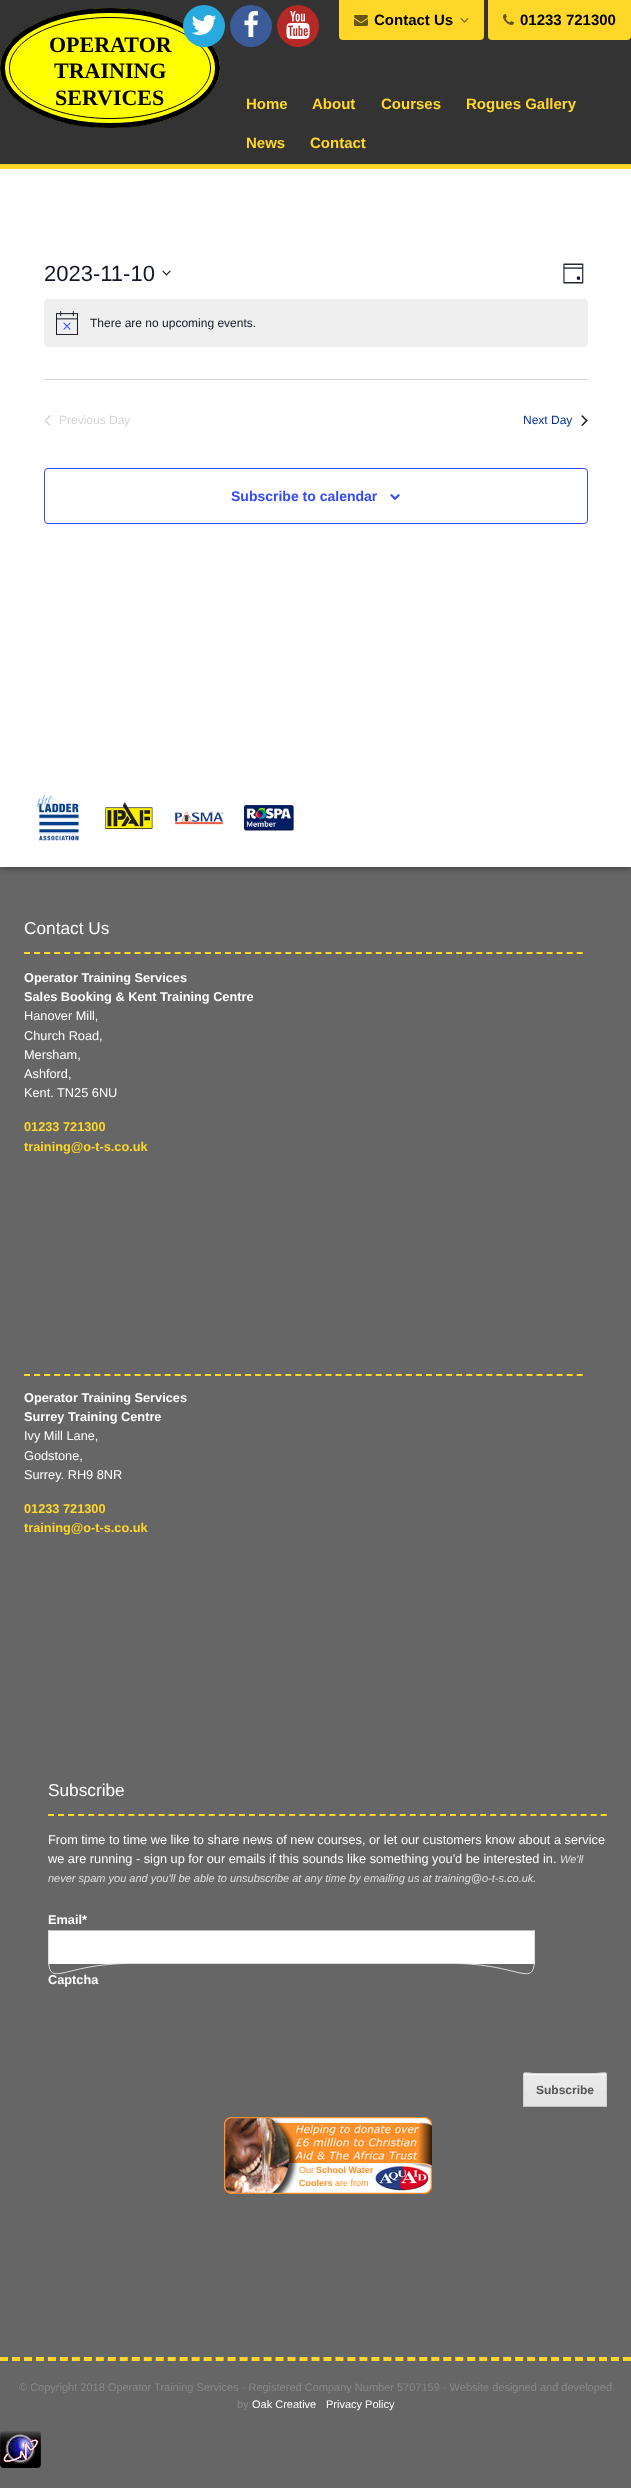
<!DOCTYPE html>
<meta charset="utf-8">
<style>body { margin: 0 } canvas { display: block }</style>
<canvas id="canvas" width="631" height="2488"></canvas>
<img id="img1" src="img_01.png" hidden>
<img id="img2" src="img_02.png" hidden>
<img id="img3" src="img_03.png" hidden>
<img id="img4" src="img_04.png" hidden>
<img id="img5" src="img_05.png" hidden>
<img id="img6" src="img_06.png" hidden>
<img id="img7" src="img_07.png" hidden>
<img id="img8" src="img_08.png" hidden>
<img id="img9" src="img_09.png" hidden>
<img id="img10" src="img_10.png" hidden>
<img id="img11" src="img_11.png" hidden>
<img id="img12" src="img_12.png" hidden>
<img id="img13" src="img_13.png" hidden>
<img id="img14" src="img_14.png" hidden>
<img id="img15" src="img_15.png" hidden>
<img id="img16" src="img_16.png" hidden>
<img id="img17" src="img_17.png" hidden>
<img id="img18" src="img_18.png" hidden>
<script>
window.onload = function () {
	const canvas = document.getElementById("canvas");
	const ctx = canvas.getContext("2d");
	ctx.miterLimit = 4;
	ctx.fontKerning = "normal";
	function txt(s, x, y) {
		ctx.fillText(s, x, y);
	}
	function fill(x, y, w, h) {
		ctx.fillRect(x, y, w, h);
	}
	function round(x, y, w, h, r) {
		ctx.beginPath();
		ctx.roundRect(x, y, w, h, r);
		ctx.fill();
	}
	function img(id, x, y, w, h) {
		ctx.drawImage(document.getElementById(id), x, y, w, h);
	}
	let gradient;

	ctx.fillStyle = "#666666";
	fill(0, 0, 631, 2488);
	ctx.fillStyle = "#333333";
	fill(0, 0, 631, 81);
	ctx.fillStyle = "rgba(0, 0, 0, 0.5)";
	ctx.filter = "blur(4px)";
	ctx.beginPath();
	ctx.rect(0, 169, 631, 698);
	ctx.fill();
	ctx.filter = "none";
	ctx.fillStyle = "#333333";
	fill(0, 81, 631, 83);
	ctx.fillStyle = "#FFFF00";
	ctx.beginPath();
	ctx.ellipse(110, 68, 110, 60, 0, 0, Math.PI * 2);
	ctx.fill();
	ctx.beginPath();
	ctx.moveTo(110, 10.5);
	ctx.bezierCurveTo(169.5, 10.5, 217.5, 36, 217.5, 68);
	ctx.bezierCurveTo(217.5, 100, 169.5, 125.5, 110, 125.5);
	ctx.bezierCurveTo(50.5, 125.5, 2.5, 100, 2.5, 68);
	ctx.bezierCurveTo(2.5, 36, 50.5, 10.5, 110, 10.5);
	ctx.closePath();
	ctx.strokeStyle = "#000000";
	ctx.lineWidth = 5;
	ctx.stroke();
	ctx.beginPath();
	ctx.moveTo(110, 17.5);
	ctx.bezierCurveTo(165.5, 17.5, 210.5, 40, 210.5, 68);
	ctx.bezierCurveTo(210.5, 96, 165.5, 118.5, 110, 118.5);
	ctx.bezierCurveTo(54.5, 118.5, 9.5, 96, 9.5, 68);
	ctx.bezierCurveTo(9.5, 40, 54.5, 17.5, 110, 17.5);
	ctx.closePath();
	ctx.lineWidth = 1;
	ctx.stroke();
	ctx.fillStyle = "#28AAE1";
	ctx.beginPath();
	ctx.arc(204, 26, 21, 0, Math.PI * 2);
	ctx.fill();
	img("img1", 191, 15, 26, 20);
	ctx.fillStyle = "#3B5B99";
	ctx.beginPath();
	ctx.arc(251, 26, 21, 0, Math.PI * 2);
	ctx.fill();
	img("img2", 244, 11, 14, 26);
	ctx.fillStyle = "#B52926";
	ctx.beginPath();
	ctx.arc(298, 26, 21, 0, Math.PI * 2);
	ctx.fill();
	img("img3", 286, 11, 24, 28);
	ctx.fillStyle = "#FFD729";
	ctx.beginPath();
	ctx.roundRect(339, 0, 145, 40, [0, 0, 4, 4]);
	ctx.fill();
	img("img4", 354, 15, 14, 11);
	img("img5", 460, 18, 9, 5);
	ctx.beginPath();
	ctx.roundRect(488, 0, 143, 40, [0, 0, 4, 4]);
	ctx.fill();
	img("img6", 503, 14, 11, 11);
	fill(0, 164, 631, 5);
	ctx.fillStyle = "#FFFFFF";
	fill(0, 169, 631, 698);
	img("img7", 162, 270, 9, 6);
	img("img8", 563, 263, 21, 21);
	ctx.fillStyle = "#EFEFF0";
	round(44, 299, 544, 48, 4);
	img("img9", 56, 311, 22, 24);
	ctx.fillStyle = "#D5D5D5";
	fill(44, 379, 544, 1);
	img("img10", 44, 415, 7, 11);
	img("img11", 581, 415, 7, 11);
	ctx.beginPath();
	ctx.roundRect(44.5, 468.5, 543, 55, 3.5);
	ctx.strokeStyle = "#334AFF";
	ctx.stroke();
	img("img12", 390, 494, 10, 6);
	img("img13", 36, 795, 43, 46);
	img("img14", 105, 802, 48, 27);
	img("img15", 174, 811, 50, 14);
	img("img16", 244, 805, 50, 26);
	ctx.beginPath();
	ctx.moveTo(0, 2359);
	ctx.lineTo(631, 2359);
	ctx.strokeStyle = "#FFD729";
	ctx.lineWidth = 4;
	ctx.setLineDash([8, 3.98]);
	ctx.stroke();
	ctx.beginPath();
	ctx.moveTo(24, 953);
	ctx.lineTo(583, 953);
	ctx.lineWidth = 2;
	ctx.setLineDash([6, 4.05]);
	ctx.stroke();
	ctx.beginPath();
	ctx.moveTo(24, 1375);
	ctx.lineTo(583, 1375);
	ctx.stroke();
	ctx.beginPath();
	ctx.moveTo(48, 1815);
	ctx.lineTo(607, 1815);
	ctx.stroke();
	ctx.fillStyle = "#FFFFFF";
	round(48, 1930, 487, 34, 1);
	ctx.fillStyle = "#BBBBBB";
	fill(49, 1930, 486, 1);
	ctx.beginPath();
	ctx.moveTo(534.5, 1930.5);
	ctx.lineTo(534.5, 1957.5);
	ctx.bezierCurveTo(534.5, 1990, 520, 1963.5, 453, 1963.5);
	ctx.lineTo(130, 1963.5);
	ctx.bezierCurveTo(63, 1963.5, 48.5, 1990, 48.5, 1957.5);
	ctx.lineTo(48.5, 1930.5);
	ctx.strokeStyle = "#DDDDDD";
	ctx.lineWidth = 1;
	ctx.setLineDash([]);
	ctx.stroke();
	ctx.fillStyle = "#E5E5E5";
	round(523, 2073, 84, 34, 1);
	gradient = ctx.createLinearGradient(565, 2074, 565, 2106);
	gradient.addColorStop(0, "#EAEAEA");
	gradient.addColorStop(1, "#E5E5E5");
	ctx.fillStyle = gradient;
	fill(523, 2074, 84, 16);
	gradient = ctx.createLinearGradient(565, 2106, 565, 2138);
	gradient.addColorStop(0, "rgba(255, 255, 255, 0.2)");
	gradient.addColorStop(1, "rgba(255, 255, 255, 0)");
	ctx.fillStyle = gradient;
	fill(523, 2106, 1, 1);
	ctx.fillStyle = "#F9F9F9";
	fill(524, 2074, 82, 1);
	ctx.fillStyle = "#C0C0C0";
	fill(524, 2106, 83, 1);
	ctx.beginPath();
	ctx.moveTo(523.5, 2106.5);
	ctx.lineTo(523.5, 2079.5);
	ctx.bezierCurveTo(523.5, 2069, 522.5, 2073.5, 537.5, 2073.5);
	ctx.lineTo(592.5, 2073.5);
	ctx.bezierCurveTo(607.5, 2073.5, 606.5, 2069, 606.5, 2079.5);
	ctx.lineTo(606.5, 2106.5);
	ctx.strokeStyle = "#D0D0D0";
	ctx.stroke();
	img("img17", 224, 2117, 208, 77);
	img("img18", 0, 2431, 41, 37);
	ctx.font = "bold 15px Liberation Sans";
	ctx.fillStyle = "#000000";
	txt("Contact Us", 374, 25);
	txt("01233 721300", 520, 25);
	ctx.font = "bold 22px Liberation Serif";
	txt("OPERATOR", 49, 52);
	txt("TRAINING", 54, 78);
	txt("SERVICES", 55, 105);
	ctx.font = "bold 15px Liberation Sans";
	ctx.fillStyle = "#FFD729";
	txt("Home", 246, 109);
	txt("About", 312, 109);
	txt("Courses", 381, 109);
	txt("Rogues Gallery", 466, 109);
	txt("News", 246, 148);
	txt("Contact", 310, 148);
	ctx.font = "22px Liberation Sans";
	ctx.fillStyle = "#141827";
	txt("2023-11-10", 44, 281);
	ctx.font = "12px Liberation Sans";
	txt("There are no upcoming events.", 90, 327);
	ctx.fillStyle = "#D5D5D5";
	txt("Previous Day", 59, 424);
	ctx.fillStyle = "#033399";
	txt("Next Day", 523, 424);
	ctx.font = "bold 14px Liberation Sans";
	ctx.fillStyle = "#334AFF";
	txt("Subscribe to calendar", 231, 501);
	ctx.font = "17.25px Liberation Sans";
	ctx.fillStyle = "#FFFFFF";
	txt("Contact Us", 24, 934);
	ctx.font = "bold 12.75px Liberation Sans";
	txt("Operator Training Services", 24, 982);
	txt("Sales Booking & Kent Training Centre", 24, 1001);
	ctx.font = "12.75px Liberation Sans";
	txt("Hanover Mill,", 24, 1020);
	txt("Church Road,", 24, 1040);
	txt("Mersham,", 24, 1059);
	txt("Ashford,", 24, 1078);
	txt("Kent. TN25 6NU", 24, 1097);
	ctx.font = "bold 12.75px Liberation Sans";
	ctx.fillStyle = "#FFD729";
	txt("01233 721300", 24, 1131);
	txt("training@o-t-s.co.uk", 24, 1151);
	ctx.fillStyle = "#FFFFFF";
	txt("Operator Training Services", 24, 1402);
	txt("Surrey Training Centre", 24, 1421);
	ctx.font = "12.75px Liberation Sans";
	txt("Ivy Mill Lane,", 24, 1440);
	txt("Godstone,", 24, 1460);
	txt("Surrey. RH9 8NR", 24, 1479);
	ctx.font = "bold 12.75px Liberation Sans";
	ctx.fillStyle = "#FFD729";
	txt("01233 721300", 24, 1513);
	txt("training@o-t-s.co.uk", 24, 1532);
	ctx.font = "17.25px Liberation Sans";
	ctx.fillStyle = "#FFFFFF";
	txt("Subscribe", 48, 1796);
	ctx.font = "12.75px Liberation Sans";
	txt("From time to time we like to share news of new courses, or let our customers know about a service", 48, 1844);
	txt("we are running - sign up for our emails if this sounds like something you'd be interested in.", 48, 1863);
	ctx.font = "italic 11px Liberation Sans";
	ctx.fillStyle = "#E0E0E0";
	txt("We'll", 560, 1863);
	txt("never spam you and you'll be able to unsubscribe at any time by emailing us at training@o-t-s.co.uk.", 48, 1882);
	ctx.font = "bold 12.75px Liberation Sans";
	ctx.fillStyle = "#FFFFFF";
	txt("Email*", 48, 1924);
	txt("Captcha", 48, 1984);
	ctx.font = "bold 12px Liberation Sans";
	ctx.fillStyle = "#555555";
	txt("Subscribe", 536, 2094);
	ctx.font = "9px Liberation Sans";
	ctx.fillStyle = "#FF902A";
	txt("Our", 299, 2173);
	ctx.font = "bold 9px Liberation Sans";
	txt("School Water", 316, 2173);
	txt("Coolers", 299, 2186);
	ctx.font = "9px Liberation Sans";
	txt("are from", 335, 2186);
	ctx.font = "11px Liberation Sans";
	ctx.fillStyle = "#888888";
	txt("© Copyright 2018 Operator Training Services · Registered Company Number 5707159 · Website designed and developed", 19, 2391);
	txt("by", 237, 2408);
	ctx.fillStyle = "#FFFFFF";
	txt("Oak Creative", 252, 2408);
	ctx.fillStyle = "#888888";
	txt("·", 319, 2408);
	ctx.fillStyle = "#FFFFFF";
	txt("Privacy Policy", 326, 2408);
};
</script>
